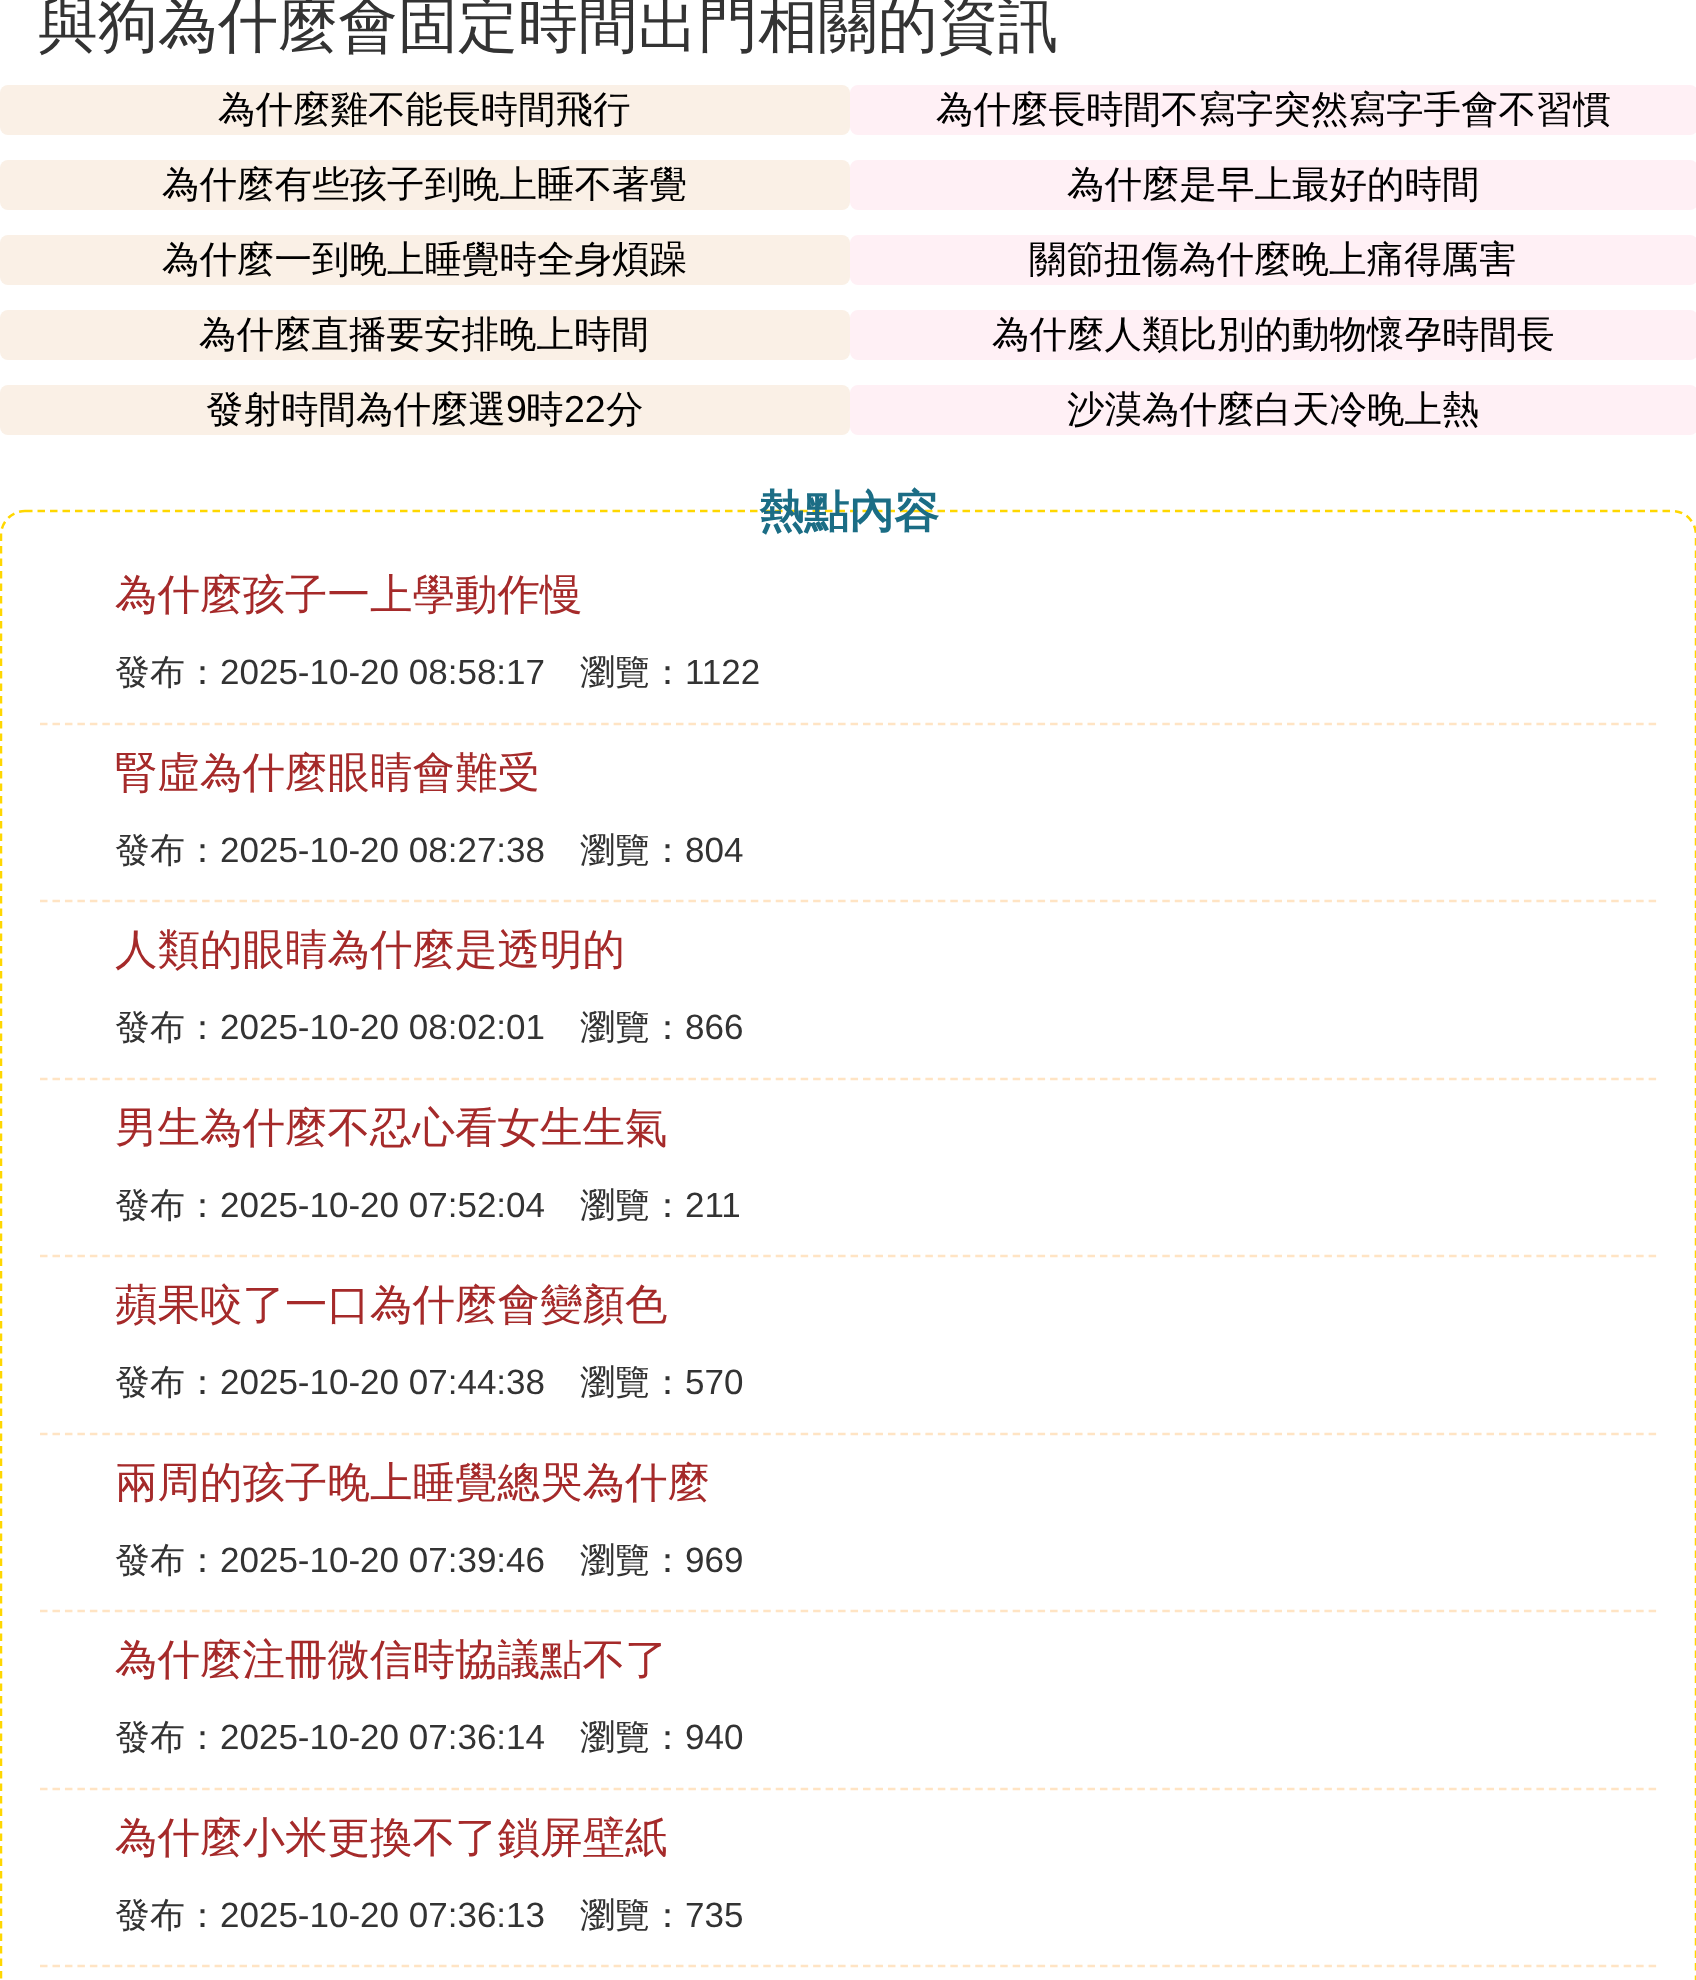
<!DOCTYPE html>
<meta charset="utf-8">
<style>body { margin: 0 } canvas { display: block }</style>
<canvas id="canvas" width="1696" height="1980"></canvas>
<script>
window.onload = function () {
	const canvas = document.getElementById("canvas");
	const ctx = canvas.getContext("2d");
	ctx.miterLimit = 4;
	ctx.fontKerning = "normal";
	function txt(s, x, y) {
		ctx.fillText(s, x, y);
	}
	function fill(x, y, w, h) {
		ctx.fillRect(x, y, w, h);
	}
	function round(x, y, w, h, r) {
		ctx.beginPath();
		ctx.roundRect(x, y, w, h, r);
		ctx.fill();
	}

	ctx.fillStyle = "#FFFFFF";
	fill(0, 0, 1696, 1980);
	ctx.fillStyle = "#FAF0E6";
	round(0, 85, 850, 50, 8);
	ctx.fillStyle = "#FFF0F5";
	round(850, 85, 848, 50, 8);
	ctx.fillStyle = "#FAF0E6";
	round(0, 160, 850, 50, 8);
	ctx.fillStyle = "#FFF0F5";
	round(850, 160, 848, 50, 8);
	ctx.fillStyle = "#FAF0E6";
	round(0, 235, 850, 50, 8);
	ctx.fillStyle = "#FFF0F5";
	round(850, 235, 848, 50, 8);
	ctx.fillStyle = "#FAF0E6";
	round(0, 310, 850, 50, 8);
	ctx.fillStyle = "#FFF0F5";
	round(850, 310, 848, 50, 8);
	ctx.fillStyle = "#FAF0E6";
	round(0, 385, 850, 50, 8);
	ctx.fillStyle = "#FFF0F5";
	round(850, 385, 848, 50, 8);
	ctx.beginPath();
	ctx.moveTo(25, 511);
	ctx.lineTo(1672.5, 511);
	ctx.bezierCurveTo(1685.5, 511, 1696, 522, 1696, 535);
	ctx.lineTo(1696, 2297.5);
	ctx.bezierCurveTo(1696, 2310.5, 1685.5, 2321, 1672.5, 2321);
	ctx.lineTo(25, 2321);
	ctx.bezierCurveTo(12, 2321, 1, 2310.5, 1, 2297.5);
	ctx.lineTo(1, 535);
	ctx.bezierCurveTo(1, 522, 12, 511, 25, 511);
	ctx.closePath();
	ctx.strokeStyle = "#FFD700";
	ctx.lineWidth = 2.5;
	ctx.setLineDash([7.5, 5]);
	ctx.stroke();
	ctx.beginPath();
	ctx.moveTo(40, 724);
	ctx.lineTo(1657.5, 724);
	ctx.strokeStyle = "#FFE4C4";
	ctx.setLineDash([7.5, 4.97]);
	ctx.stroke();
	ctx.beginPath();
	ctx.moveTo(40, 901);
	ctx.lineTo(1657.5, 901);
	ctx.stroke();
	ctx.beginPath();
	ctx.moveTo(40, 1079);
	ctx.lineTo(1657.5, 1079);
	ctx.stroke();
	ctx.beginPath();
	ctx.moveTo(40, 1256);
	ctx.lineTo(1657.5, 1256);
	ctx.stroke();
	ctx.beginPath();
	ctx.moveTo(40, 1434);
	ctx.lineTo(1657.5, 1434);
	ctx.stroke();
	ctx.beginPath();
	ctx.moveTo(40, 1611);
	ctx.lineTo(1657.5, 1611);
	ctx.stroke();
	ctx.beginPath();
	ctx.moveTo(40, 1789);
	ctx.lineTo(1657.5, 1789);
	ctx.stroke();
	ctx.beginPath();
	ctx.moveTo(40, 1966);
	ctx.lineTo(1657.5, 1966);
	ctx.stroke();
	ctx.font = "500 60px WenQuanYi Zen Hei";
	ctx.fillStyle = "#333333";
	txt("與狗為什麼會固定時間出門相關的資訊", 38, 46);
	ctx.font = "500 37.5px WenQuanYi Zen Hei";
	ctx.fillStyle = "#000000";
	txt("為什麼雞不能長時間飛行", 218, 122);
	txt("為什麼長時間不寫字突然寫字手會不習慣", 936, 122);
	txt("為什麼有些孩子到晚上睡不著覺", 162, 197);
	txt("為什麼是早上最好的時間", 1067, 197);
	txt("為什麼一到晚上睡覺時全身煩躁", 162, 272);
	txt("關節扭傷為什麼晚上痛得厲害", 1029, 272);
	txt("為什麼直播要安排晚上時間", 199, 347);
	txt("為什麼人類比別的動物懷孕時間長", 992, 347);
	txt("發射時間為什麼選", 206, 422);
	ctx.font = "37.5px Liberation Sans";
	txt("9", 506, 422);
	ctx.font = "500 37.5px WenQuanYi Zen Hei";
	txt("時", 526, 422);
	ctx.font = "37.5px Liberation Sans";
	txt("22", 564, 422);
	ctx.font = "500 37.5px WenQuanYi Zen Hei";
	txt("分", 606, 422);
	txt("沙漠為什麼白天冷晚上熱", 1067, 422);
	ctx.font = "bold 45px WenQuanYi Zen Hei";
	ctx.fillStyle = "#1B6D85";
	txt("熱點內容", 759, 527);
	ctx.font = "500 42.5px WenQuanYi Zen Hei";
	ctx.fillStyle = "#A52A2A";
	txt("為什麼孩子一上學動作慢", 115, 609);
	ctx.font = "500 35px WenQuanYi Zen Hei";
	ctx.fillStyle = "#333333";
	txt("發布：", 115, 684);
	ctx.font = "35px Liberation Sans";
	txt("2025-10-20 08:58:17", 220, 684);
	ctx.font = "500 35px WenQuanYi Zen Hei";
	txt("瀏覽：", 580, 684);
	ctx.font = "35px Liberation Sans";
	txt("1122", 685, 684);
	ctx.font = "500 42.5px WenQuanYi Zen Hei";
	ctx.fillStyle = "#A52A2A";
	txt("腎虛為什麼眼睛會難受", 115, 787);
	ctx.font = "500 35px WenQuanYi Zen Hei";
	ctx.fillStyle = "#333333";
	txt("發布：", 115, 862);
	ctx.font = "35px Liberation Sans";
	txt("2025-10-20 08:27:38", 220, 862);
	ctx.font = "500 35px WenQuanYi Zen Hei";
	txt("瀏覽：", 580, 862);
	ctx.font = "35px Liberation Sans";
	txt("804", 685, 862);
	ctx.font = "500 42.5px WenQuanYi Zen Hei";
	ctx.fillStyle = "#A52A2A";
	txt("人類的眼睛為什麼是透明的", 115, 964);
	ctx.font = "500 35px WenQuanYi Zen Hei";
	ctx.fillStyle = "#333333";
	txt("發布：", 115, 1039);
	ctx.font = "35px Liberation Sans";
	txt("2025-10-20 08:02:01", 220, 1039);
	ctx.font = "500 35px WenQuanYi Zen Hei";
	txt("瀏覽：", 580, 1039);
	ctx.font = "35px Liberation Sans";
	txt("866", 685, 1039);
	ctx.font = "500 42.5px WenQuanYi Zen Hei";
	ctx.fillStyle = "#A52A2A";
	txt("男生為什麼不忍心看女生生氣", 115, 1142);
	ctx.font = "500 35px WenQuanYi Zen Hei";
	ctx.fillStyle = "#333333";
	txt("發布：", 115, 1217);
	ctx.font = "35px Liberation Sans";
	txt("2025-10-20 07:52:04", 220, 1217);
	ctx.font = "500 35px WenQuanYi Zen Hei";
	txt("瀏覽：", 580, 1217);
	ctx.font = "35px Liberation Sans";
	txt("211", 685, 1217);
	ctx.font = "500 42.5px WenQuanYi Zen Hei";
	ctx.fillStyle = "#A52A2A";
	txt("蘋果咬了一口為什麼會變顏色", 115, 1319);
	ctx.font = "500 35px WenQuanYi Zen Hei";
	ctx.fillStyle = "#333333";
	txt("發布：", 115, 1394);
	ctx.font = "35px Liberation Sans";
	txt("2025-10-20 07:44:38", 220, 1394);
	ctx.font = "500 35px WenQuanYi Zen Hei";
	txt("瀏覽：", 580, 1394);
	ctx.font = "35px Liberation Sans";
	txt("570", 685, 1394);
	ctx.font = "500 42.5px WenQuanYi Zen Hei";
	ctx.fillStyle = "#A52A2A";
	txt("兩周的孩子晚上睡覺總哭為什麼", 115, 1497);
	ctx.font = "500 35px WenQuanYi Zen Hei";
	ctx.fillStyle = "#333333";
	txt("發布：", 115, 1572);
	ctx.font = "35px Liberation Sans";
	txt("2025-10-20 07:39:46", 220, 1572);
	ctx.font = "500 35px WenQuanYi Zen Hei";
	txt("瀏覽：", 580, 1572);
	ctx.font = "35px Liberation Sans";
	txt("969", 685, 1572);
	ctx.font = "500 42.5px WenQuanYi Zen Hei";
	ctx.fillStyle = "#A52A2A";
	txt("為什麼注冊微信時協議點不了", 115, 1674);
	ctx.font = "500 35px WenQuanYi Zen Hei";
	ctx.fillStyle = "#333333";
	txt("發布：", 115, 1749);
	ctx.font = "35px Liberation Sans";
	txt("2025-10-20 07:36:14", 220, 1749);
	ctx.font = "500 35px WenQuanYi Zen Hei";
	txt("瀏覽：", 580, 1749);
	ctx.font = "35px Liberation Sans";
	txt("940", 685, 1749);
	ctx.font = "500 42.5px WenQuanYi Zen Hei";
	ctx.fillStyle = "#A52A2A";
	txt("為什麼小米更換不了鎖屏壁紙", 115, 1852);
	ctx.font = "500 35px WenQuanYi Zen Hei";
	ctx.fillStyle = "#333333";
	txt("發布：", 115, 1927);
	ctx.font = "35px Liberation Sans";
	txt("2025-10-20 07:36:13", 220, 1927);
	ctx.font = "500 35px WenQuanYi Zen Hei";
	txt("瀏覽：", 580, 1927);
	ctx.font = "35px Liberation Sans";
	txt("735", 685, 1927);
};
</script>
